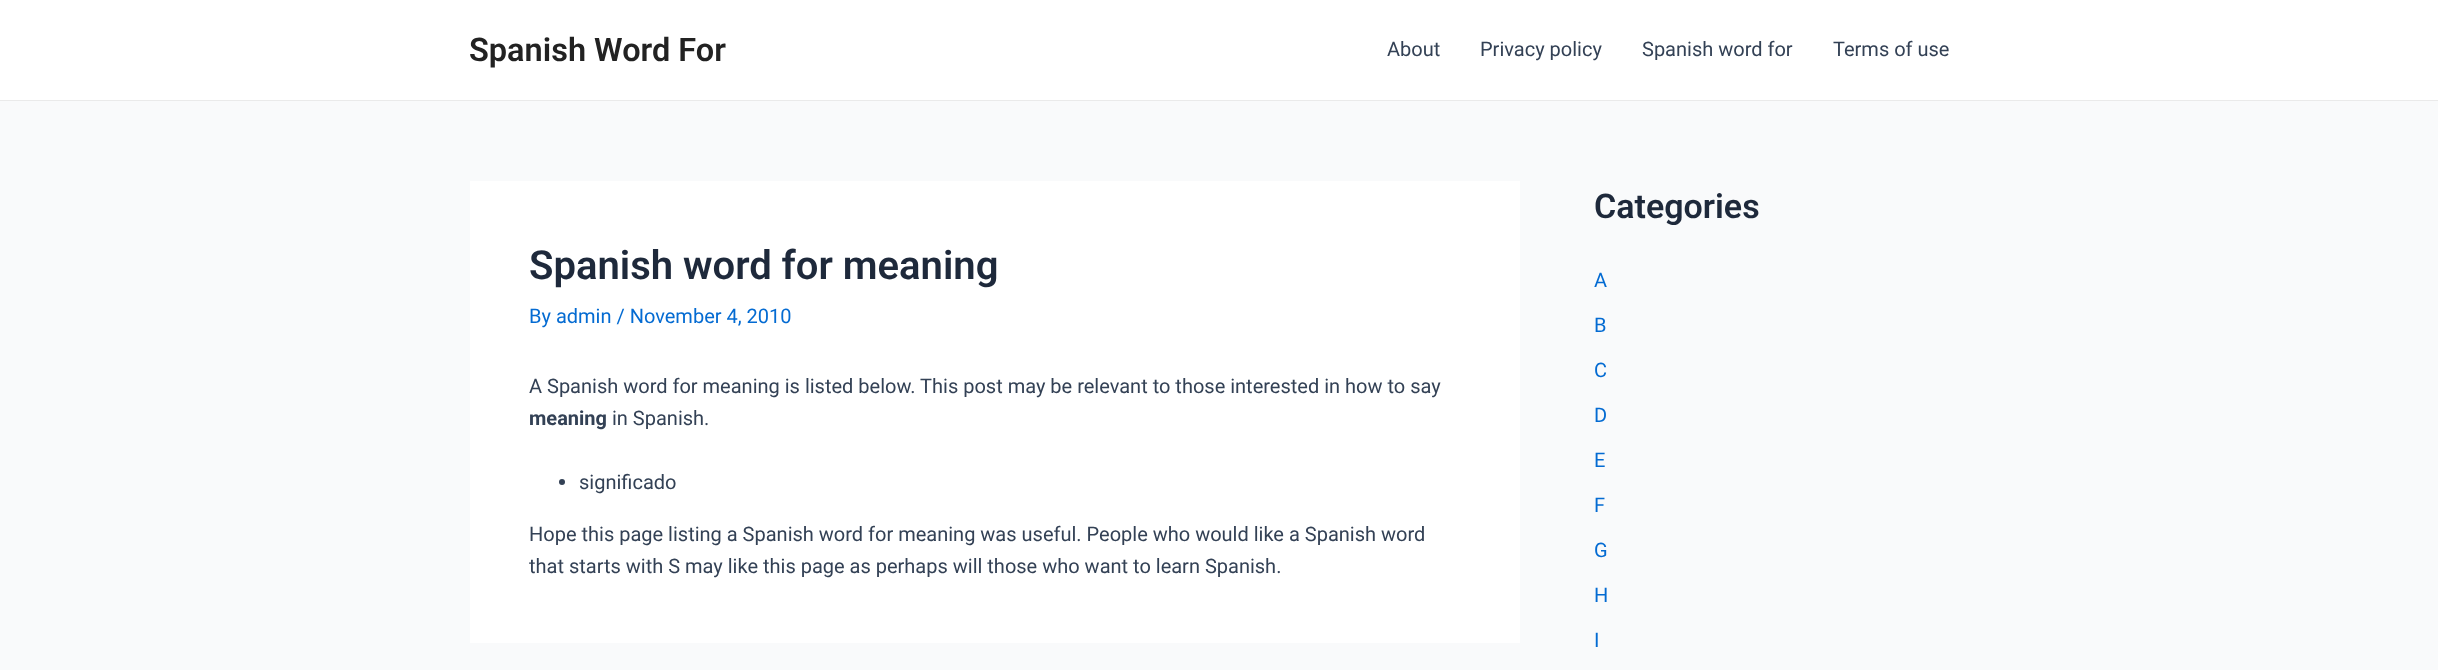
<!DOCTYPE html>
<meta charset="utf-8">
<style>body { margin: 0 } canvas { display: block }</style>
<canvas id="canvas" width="2438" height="670"></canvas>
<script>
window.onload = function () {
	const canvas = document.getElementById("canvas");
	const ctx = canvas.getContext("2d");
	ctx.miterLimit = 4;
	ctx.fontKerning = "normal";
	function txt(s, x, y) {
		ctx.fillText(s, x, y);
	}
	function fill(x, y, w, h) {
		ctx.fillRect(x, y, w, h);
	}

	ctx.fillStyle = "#F9FAFB";
	fill(0, 0, 2438, 670);
	ctx.fillStyle = "#FFFFFF";
	fill(0, 0, 2438, 100);
	ctx.fillStyle = "#EAEAEA";
	fill(0, 100, 2438, 1);
	ctx.fillStyle = "#FFFFFF";
	fill(470, 181, 1050, 462);
	ctx.fillStyle = "#334155";
	ctx.beginPath();
	ctx.arc(562, 482, 3, 0, Math.PI * 2);
	ctx.fill();
	ctx.font = "600 32.5px Roboto";
	ctx.fillStyle = "#222222";
	txt("Spanish Word For", 469, 61);
	ctx.font = "20px Roboto";
	ctx.fillStyle = "#334155";
	txt("About", 1387, 56);
	txt("Privacy policy", 1480, 56);
	txt("Spanish word for", 1642, 56);
	txt("Terms of use", 1833, 56);
	ctx.font = "600 40px Roboto";
	ctx.fillStyle = "#1E293B";
	txt("Spanish word for meaning", 529, 279);
	ctx.font = "20px Roboto";
	ctx.fillStyle = "#046BD2";
	txt("By admin / November 4, 2010", 529, 323);
	ctx.fillStyle = "#334155";
	txt("A Spanish word for meaning is listed below. This post may be relevant to those interested in how to say", 529, 393);
	ctx.font = "bold 20px Roboto";
	txt("meaning", 529, 425);
	ctx.font = "20px Roboto";
	txt("in Spanish.", 612, 425);
	txt("significado", 579, 489);
	txt("Hope this page listing a Spanish word for meaning was useful. People who would like a Spanish word", 529, 541);
	txt("that starts with S may like this page as perhaps will those who want to learn Spanish.", 529, 573);
	ctx.font = "600 34px Roboto";
	ctx.fillStyle = "#1E293B";
	txt("Categories", 1594, 218);
	ctx.font = "20px Roboto";
	ctx.fillStyle = "#046BD2";
	txt("A", 1594, 287);
	txt("B", 1594, 332);
	txt("C", 1594, 377);
	txt("D", 1594, 422);
	txt("E", 1594, 467);
	txt("F", 1594, 512);
	txt("G", 1594, 557);
	txt("H", 1594, 602);
	txt("I", 1594, 647);
};
</script>
